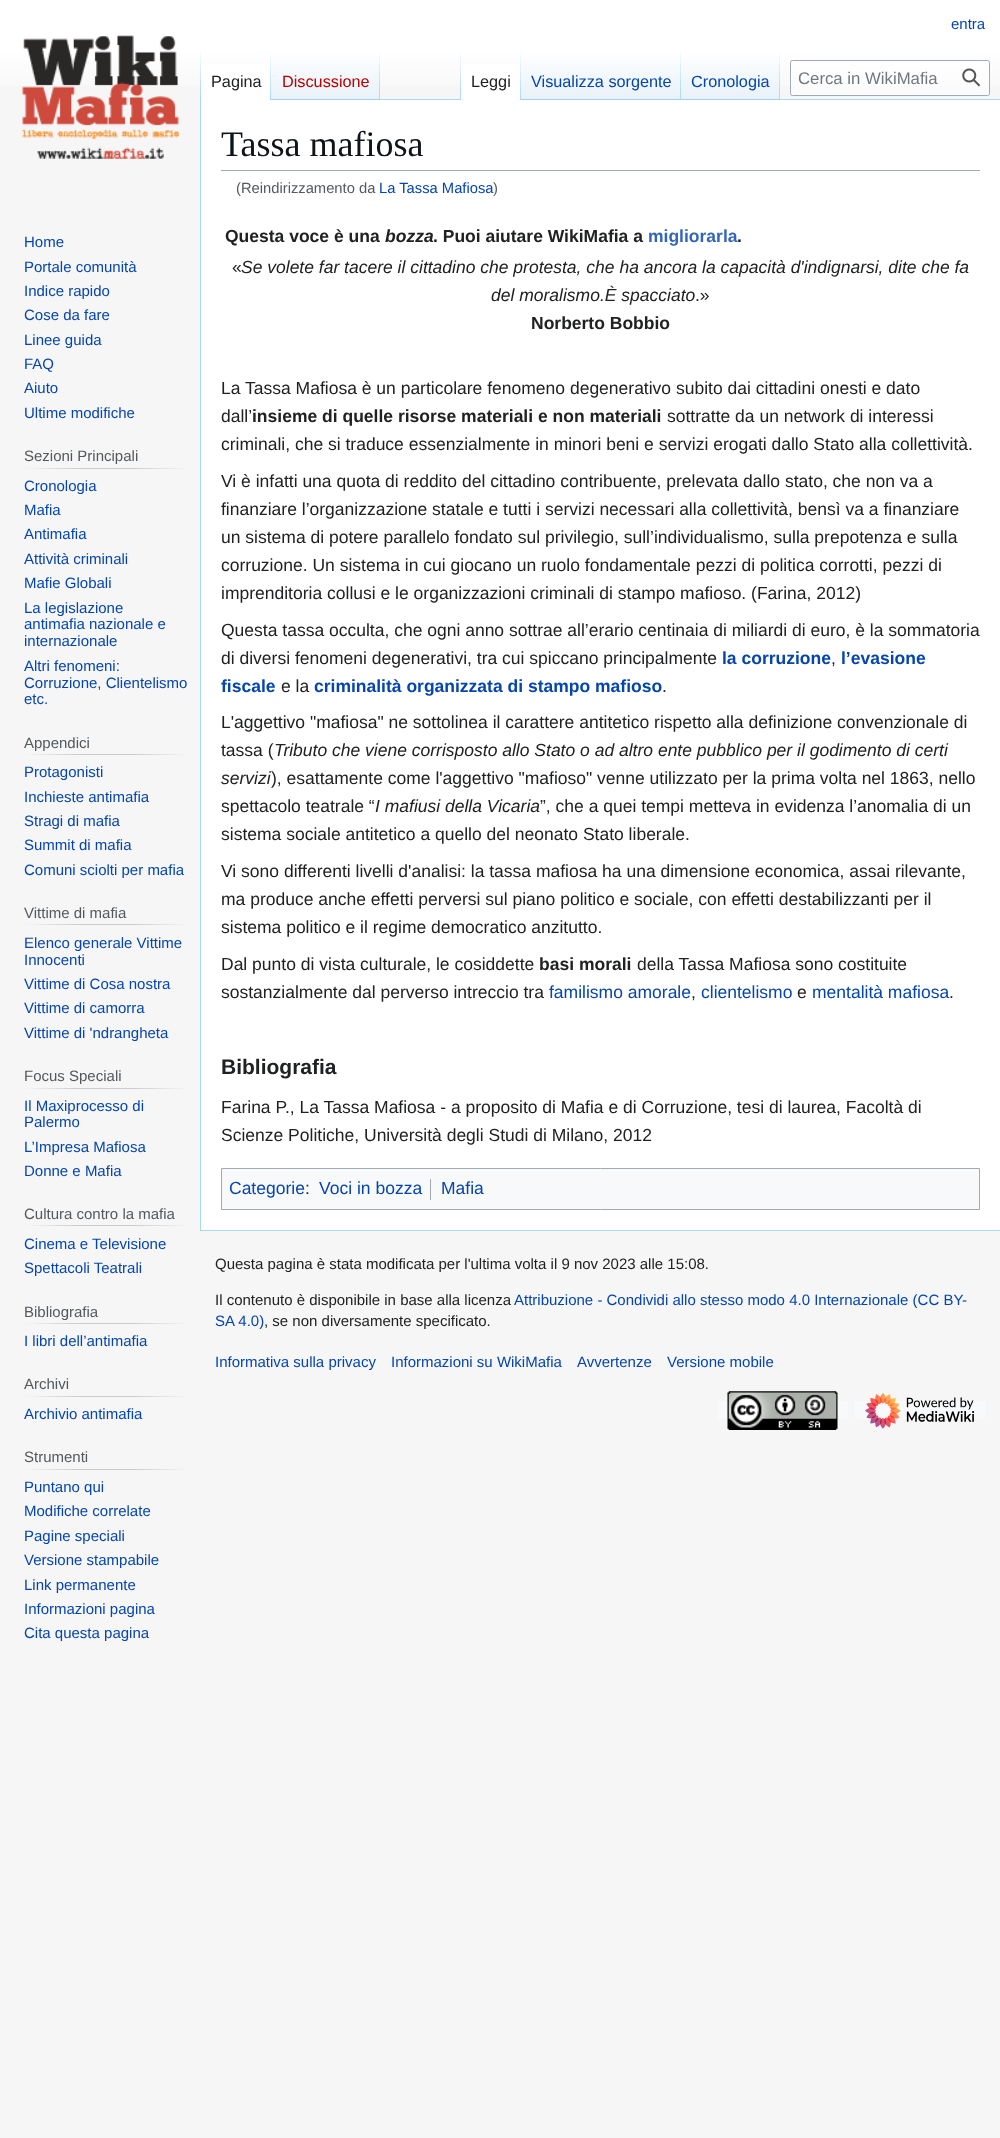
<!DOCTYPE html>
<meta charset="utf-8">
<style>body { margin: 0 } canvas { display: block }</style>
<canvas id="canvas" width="1000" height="2138"></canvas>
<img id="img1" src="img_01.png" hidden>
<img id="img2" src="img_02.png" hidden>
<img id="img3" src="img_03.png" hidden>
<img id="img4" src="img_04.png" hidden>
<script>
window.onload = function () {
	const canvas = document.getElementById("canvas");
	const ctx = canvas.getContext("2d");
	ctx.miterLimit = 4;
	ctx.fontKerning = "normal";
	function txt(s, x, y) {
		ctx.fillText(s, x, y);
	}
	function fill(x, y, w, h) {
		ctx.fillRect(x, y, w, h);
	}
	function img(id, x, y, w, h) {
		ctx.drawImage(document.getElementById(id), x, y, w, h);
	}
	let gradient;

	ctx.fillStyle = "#F6F6F6";
	fill(0, 0, 1000, 2138);
	gradient = ctx.createLinearGradient(500, 0, 500, 100);
	gradient.addColorStop(0.5, "#FFFFFF");
	gradient.addColorStop(1, "#F6F6F6");
	ctx.fillStyle = gradient;
	fill(0, 0, 1000, 86);
	ctx.fillStyle = "#A7D7F9";
	fill(200, 1230, 800, 1);
	fill(200, 99, 1, 1132);
	gradient = ctx.createLinearGradient(201, 50, 201, 100);
	gradient.addColorStop(0, "rgba(167, 215, 249, 0)");
	gradient.addColorStop(1, "#A7D7F9");
	ctx.fillStyle = gradient;
	fill(200, 50, 1, 50);
	ctx.fillStyle = "#FFFFFF";
	fill(201, 64, 69, 36);
	gradient = ctx.createLinearGradient(271, 50, 271, 100);
	gradient.addColorStop(0, "#FFFFFF");
	gradient.addColorStop(1, "#A7D7F9");
	ctx.fillStyle = gradient;
	fill(270, 50, 1, 50);
	gradient = ctx.createLinearGradient(326, 100, 326, 50);
	gradient.addColorStop(0, "#77C1F6");
	gradient.addColorStop(0.03, "#E8F2F8");
	gradient.addColorStop(1, "#FFFFFF");
	ctx.fillStyle = gradient;
	fill(271, 57, 109, 43);
	gradient = ctx.createLinearGradient(379, 50, 379, 100);
	gradient.addColorStop(0, "rgba(167, 215, 249, 0)");
	gradient.addColorStop(1, "#A7D7F9");
	ctx.fillStyle = gradient;
	fill(379, 50, 1, 50);
	ctx.fillStyle = "#A7D7F9";
	fill(380, 99, 620, 1);
	gradient = ctx.createLinearGradient(461, 50, 461, 100);
	gradient.addColorStop(0, "rgba(167, 215, 249, 0)");
	gradient.addColorStop(1, "#A7D7F9");
	ctx.fillStyle = gradient;
	fill(460, 50, 1, 50);
	ctx.fillStyle = "#FFFFFF";
	fill(461, 64, 59, 36);
	gradient = ctx.createLinearGradient(521, 50, 521, 100);
	gradient.addColorStop(0, "#FFFFFF");
	gradient.addColorStop(1, "#A7D7F9");
	ctx.fillStyle = gradient;
	fill(520, 50, 1, 50);
	gradient = ctx.createLinearGradient(601, 100, 601, 50);
	gradient.addColorStop(0, "#77C1F6");
	gradient.addColorStop(0.03, "#E8F2F8");
	gradient.addColorStop(1, "#FFFFFF");
	ctx.fillStyle = gradient;
	fill(521, 57, 160, 43);
	gradient = ctx.createLinearGradient(681, 50, 681, 100);
	gradient.addColorStop(0, "rgba(167, 215, 249, 0)");
	gradient.addColorStop(1, "#A7D7F9");
	ctx.fillStyle = gradient;
	fill(680, 50, 1, 50);
	gradient = ctx.createLinearGradient(731, 100, 731, 50);
	gradient.addColorStop(0, "#77C1F6");
	gradient.addColorStop(0.03, "#E8F2F8");
	gradient.addColorStop(1, "#FFFFFF");
	ctx.fillStyle = gradient;
	fill(681, 57, 99, 43);
	gradient = ctx.createLinearGradient(779, 50, 779, 100);
	gradient.addColorStop(0, "rgba(167, 215, 249, 0)");
	gradient.addColorStop(1, "#A7D7F9");
	ctx.fillStyle = gradient;
	fill(779, 50, 1, 50);
	ctx.fillStyle = "rgba(255, 255, 255, 0.5)";
	ctx.beginPath();
	ctx.roundRect(790.5, 60.5, 199, 35, 2);
	ctx.fill();
	ctx.strokeStyle = "#A2A9B1";
	ctx.stroke();
	img("img1", 962, 68, 19, 19);
	img("img2", 22, 35, 158, 124);
	gradient = ctx.createLinearGradient(24, 468, 188, 468);
	gradient.addColorStop(0, "#F6F6F6");
	gradient.addColorStop(0.33, "#C8CCD1");
	gradient.addColorStop(0.66, "#C8CCD1");
	gradient.addColorStop(1, "#F6F6F6");
	ctx.fillStyle = gradient;
	fill(24, 468, 164, 1);
	gradient = ctx.createLinearGradient(24, 754, 188, 754);
	gradient.addColorStop(0, "#F6F6F6");
	gradient.addColorStop(0.33, "#C8CCD1");
	gradient.addColorStop(0.66, "#C8CCD1");
	gradient.addColorStop(1, "#F6F6F6");
	ctx.fillStyle = gradient;
	fill(24, 754, 164, 1);
	gradient = ctx.createLinearGradient(24, 924, 188, 924);
	gradient.addColorStop(0, "#F6F6F6");
	gradient.addColorStop(0.33, "#C8CCD1");
	gradient.addColorStop(0.66, "#C8CCD1");
	gradient.addColorStop(1, "#F6F6F6");
	ctx.fillStyle = gradient;
	fill(24, 924, 164, 1);
	gradient = ctx.createLinearGradient(24, 1088, 188, 1088);
	gradient.addColorStop(0, "#F6F6F6");
	gradient.addColorStop(0.33, "#C8CCD1");
	gradient.addColorStop(0.66, "#C8CCD1");
	gradient.addColorStop(1, "#F6F6F6");
	ctx.fillStyle = gradient;
	fill(24, 1088, 164, 1);
	gradient = ctx.createLinearGradient(24, 1226, 188, 1226);
	gradient.addColorStop(0, "#F6F6F6");
	gradient.addColorStop(0.33, "#C8CCD1");
	gradient.addColorStop(0.66, "#C8CCD1");
	gradient.addColorStop(1, "#F6F6F6");
	ctx.fillStyle = gradient;
	fill(24, 1225, 164, 1);
	gradient = ctx.createLinearGradient(24, 1323, 188, 1323);
	gradient.addColorStop(0, "#F6F6F6");
	gradient.addColorStop(0.33, "#C8CCD1");
	gradient.addColorStop(0.66, "#C8CCD1");
	gradient.addColorStop(1, "#F6F6F6");
	ctx.fillStyle = gradient;
	fill(24, 1323, 164, 1);
	gradient = ctx.createLinearGradient(24, 1397, 188, 1397);
	gradient.addColorStop(0, "#F6F6F6");
	gradient.addColorStop(0.33, "#C8CCD1");
	gradient.addColorStop(0.66, "#C8CCD1");
	gradient.addColorStop(1, "#F6F6F6");
	ctx.fillStyle = gradient;
	fill(24, 1396, 164, 1);
	gradient = ctx.createLinearGradient(24, 1469, 188, 1469);
	gradient.addColorStop(0, "#F6F6F6");
	gradient.addColorStop(0.33, "#C8CCD1");
	gradient.addColorStop(0.66, "#C8CCD1");
	gradient.addColorStop(1, "#F6F6F6");
	ctx.fillStyle = gradient;
	fill(24, 1469, 164, 1);
	ctx.fillStyle = "#FFFFFF";
	fill(201, 100, 799, 1130);
	ctx.fillStyle = "#A2A9B1";
	fill(221, 170, 759, 1);
	ctx.fillStyle = "#F8F9FA";
	ctx.beginPath();
	ctx.rect(221.5, 1168.5, 758, 41);
	ctx.fill();
	ctx.stroke();
	ctx.fillStyle = "#A2A9B1";
	fill(430, 1179, 1, 21);
	ctx.fillStyle = "#F8F9FA";
	fill(718, 1401, 130, 18);
	img("img3", 727, 1391, 111, 39);
	fill(855, 1401, 130, 18);
	img("img4", 865, 1393, 110, 36);
	ctx.font = "15px Liberation Sans";
	ctx.fillStyle = "#0645AD";
	txt("entra", 951, 29);
	ctx.font = "16.25px Liberation Sans";
	ctx.fillStyle = "#202122";
	txt("Pagina", 211, 87);
	ctx.fillStyle = "#BA0000";
	txt("Discussione", 282, 87);
	ctx.fillStyle = "#202122";
	txt("Leggi", 471, 87);
	ctx.fillStyle = "#0645AD";
	txt("Visualizza sorgente", 531, 87);
	txt("Cronologia", 691, 87);
	ctx.font = "16.75px Liberation Sans";
	ctx.fillStyle = "#72777D";
	txt("Cerca in WikiMafia", 798, 84);
	ctx.font = "15px Liberation Sans";
	ctx.fillStyle = "#0645AD";
	txt("Home", 24, 247);
	txt("Portale comunità", 24, 272);
	txt("Indice rapido", 24, 296);
	txt("Cose da fare", 24, 320);
	txt("Linee guida", 24, 345);
	txt("FAQ", 24, 369);
	txt("Aiuto", 24, 393);
	txt("Ultime modifiche", 24, 418);
	ctx.fillStyle = "#54595D";
	txt("Sezioni Principali", 24, 461);
	ctx.fillStyle = "#0645AD";
	txt("Cronologia", 24, 491);
	txt("Mafia", 24, 515);
	txt("Antimafia", 24, 539);
	txt("Attività criminali", 24, 564);
	txt("Mafie Globali", 24, 588);
	txt("La legislazione", 24, 613);
	txt("antimafia nazionale e", 24, 629);
	txt("internazionale", 24, 646);
	txt("Altri fenomeni:", 24, 671);
	txt("Corruzione, Clientelismo", 24, 688);
	txt("etc.", 24, 704);
	ctx.fillStyle = "#54595D";
	txt("Appendici", 24, 748);
	ctx.fillStyle = "#0645AD";
	txt("Protagonisti", 24, 777);
	txt("Inchieste antimafia", 24, 802);
	txt("Stragi di mafia", 24, 826);
	txt("Summit di mafia", 24, 850);
	txt("Comuni sciolti per mafia", 24, 875);
	ctx.fillStyle = "#54595D";
	txt("Vittime di mafia", 24, 918);
	ctx.fillStyle = "#0645AD";
	txt("Elenco generale Vittime", 24, 948);
	txt("Innocenti", 24, 965);
	txt("Vittime di Cosa nostra", 24, 989);
	txt("Vittime di camorra", 24, 1013);
	txt("Vittime di 'ndrangheta", 24, 1038);
	ctx.fillStyle = "#54595D";
	txt("Focus Speciali", 24, 1081);
	ctx.fillStyle = "#0645AD";
	txt("Il Maxiprocesso di", 24, 1111);
	txt("Palermo", 24, 1127);
	txt("L’Impresa Mafiosa", 24, 1152);
	txt("Donne e Mafia", 24, 1176);
	ctx.fillStyle = "#54595D";
	txt("Cultura contro la mafia", 24, 1219);
	ctx.fillStyle = "#0645AD";
	txt("Cinema e Televisione", 24, 1249);
	txt("Spettacoli Teatrali", 24, 1273);
	ctx.fillStyle = "#54595D";
	txt("Bibliografia", 24, 1317);
	ctx.fillStyle = "#0645AD";
	txt("I libri dell’antimafia", 24, 1346);
	ctx.fillStyle = "#54595D";
	txt("Archivi", 24, 1389);
	ctx.fillStyle = "#0645AD";
	txt("Archivio antimafia", 24, 1419);
	ctx.fillStyle = "#54595D";
	txt("Strumenti", 24, 1462);
	ctx.fillStyle = "#0645AD";
	txt("Puntano qui", 24, 1492);
	txt("Modifiche correlate", 24, 1516);
	txt("Pagine speciali", 24, 1541);
	txt("Versione stampabile", 24, 1565);
	txt("Link permanente", 24, 1590);
	txt("Informazioni pagina", 24, 1614);
	txt("Cita questa pagina", 24, 1638);
	ctx.font = "36px Liberation Serif";
	ctx.fillStyle = "#101418";
	txt("Tassa mafiosa", 221, 156);
	ctx.font = "14.75px Liberation Sans";
	ctx.fillStyle = "#54595D";
	txt("(Reindirizzamento da", 236, 193);
	ctx.fillStyle = "#0645AD";
	txt("La Tassa Mafiosa", 379, 193);
	ctx.fillStyle = "#54595D";
	txt(")", 493, 193);
	ctx.font = "bold 17.5px Liberation Sans";
	ctx.fillStyle = "#202122";
	txt("Questa voce è una", 225, 242);
	ctx.font = "italic bold 17.5px Liberation Sans";
	txt("bozza", 385, 242);
	ctx.font = "bold 17.5px Liberation Sans";
	txt(". Puoi aiutare WikiMafia a", 433, 242);
	ctx.fillStyle = "#3366BB";
	txt("migliorarla", 648, 242);
	ctx.fillStyle = "#202122";
	txt(".", 737, 242);
	ctx.font = "17.5px Liberation Sans";
	txt("«", 232, 273);
	ctx.font = "italic 17.5px Liberation Sans";
	txt("Se volete far tacere il cittadino che protesta, che ha ancora la capacità d'indignarsi, dite che fa", 241, 273);
	txt("del moralismo.È spacciato", 491, 301);
	ctx.font = "17.5px Liberation Sans";
	txt(".»", 695, 301);
	ctx.font = "bold 17.5px Liberation Sans";
	txt("Norberto Bobbio", 531, 329);
	ctx.font = "17.5px Liberation Sans";
	txt("La Tassa Mafiosa è un particolare fenomeno degenerativo subito dai cittadini onesti e dato", 221, 394);
	txt("dall’", 221, 422);
	ctx.font = "bold 17.5px Liberation Sans";
	txt("insieme di quelle risorse materiali e non materiali", 252, 422);
	ctx.font = "17.5px Liberation Sans";
	txt("sottratte da un network di interessi", 667, 422);
	txt("criminali, che si traduce essenzialmente in minori beni e servizi erogati dallo Stato alla collettività.", 221, 450);
	txt("Vi è infatti una quota di reddito del cittadino contribuente, prelevata dallo stato, che non va a", 221, 487);
	txt("finanziare l’organizzazione statale e tutti i servizi necessari alla collettività, bensì va a finanziare", 221, 515);
	txt("un sistema di potere parallelo fondato sul privilegio, sull’individualismo, sulla prepotenza e sulla", 221, 543);
	txt("corruzione. Un sistema in cui giocano un ruolo fondamentale pezzi di politica corrotti, pezzi di", 221, 571);
	txt("imprenditoria collusi e le organizzazioni criminali di stampo mafioso. (Farina, 2012)", 221, 599);
	txt("Questa tassa occulta, che ogni anno sottrae all’erario centinaia di miliardi di euro, è la sommatoria", 221, 636);
	txt("di diversi fenomeni degenerativi, tra cui spiccano principalmente", 221, 664);
	ctx.font = "bold 17.5px Liberation Sans";
	ctx.fillStyle = "#0645AD";
	txt("la corruzione", 722, 664);
	ctx.font = "17.5px Liberation Sans";
	ctx.fillStyle = "#202122";
	txt(",", 831, 664);
	ctx.font = "bold 17.5px Liberation Sans";
	ctx.fillStyle = "#0645AD";
	txt("l’evasione", 841, 664);
	txt("fiscale", 221, 692);
	ctx.font = "17.5px Liberation Sans";
	ctx.fillStyle = "#202122";
	txt("e la", 281, 692);
	ctx.font = "bold 17.5px Liberation Sans";
	ctx.fillStyle = "#0645AD";
	txt("criminalità organizzata di stampo mafioso", 314, 692);
	ctx.font = "17.5px Liberation Sans";
	ctx.fillStyle = "#202122";
	txt(".", 662, 692);
	txt("L'aggettivo \"mafiosa\" ne sottolinea il carattere antitetico rispetto alla definizione convenzionale di", 221, 728);
	txt("tassa (", 221, 756);
	ctx.font = "italic 17.5px Liberation Sans";
	txt("Tributo che viene corrisposto allo Stato o ad altro ente pubblico per il godimento di certi", 274, 756);
	txt("servizi", 221, 784);
	ctx.font = "17.5px Liberation Sans";
	txt("), esattamente come l'aggettivo \"mafioso\" venne utilizzato per la prima volta nel 1863, nello", 271, 784);
	txt("spettacolo teatrale “", 221, 812);
	ctx.font = "italic 17.5px Liberation Sans";
	txt("I mafiusi della Vicaria", 375, 812);
	ctx.font = "17.5px Liberation Sans";
	txt("”, che a quei tempi metteva in evidenza l’anomalia di un", 540, 812);
	txt("sistema sociale antitetico a quello del neonato Stato liberale.", 221, 840);
	txt("Vi sono differenti livelli d'analisi: la tassa mafiosa ha una dimensione economica, assai rilevante,", 221, 877);
	txt("ma produce anche effetti perversi sul piano politico e sociale, con effetti destabilizzanti per il", 221, 905);
	txt("sistema politico e il regime democratico anzitutto.", 221, 933);
	txt("Dal punto di vista culturale, le cosiddette", 221, 970);
	ctx.font = "bold 17.5px Liberation Sans";
	txt("basi morali", 539, 970);
	ctx.font = "17.5px Liberation Sans";
	txt("della Tassa Mafiosa sono costituite", 637, 970);
	txt("sostanzialmente dal perverso intreccio tra", 221, 998);
	ctx.fillStyle = "#0645AD";
	txt("familismo amorale", 549, 998);
	ctx.fillStyle = "#202122";
	txt(",", 691, 998);
	ctx.fillStyle = "#0645AD";
	txt("clientelismo", 701, 998);
	ctx.fillStyle = "#202122";
	txt("e", 797, 998);
	ctx.fillStyle = "#0645AD";
	txt("mentalità mafiosa", 812, 998);
	ctx.fillStyle = "#202122";
	txt(".", 949, 998);
	ctx.font = "bold 21px Liberation Sans";
	txt("Bibliografia", 221, 1074);
	ctx.font = "17.5px Liberation Sans";
	txt("Farina P., La Tassa Mafiosa - a proposito di Mafia e di Corruzione, tesi di laurea, Facoltà di", 221, 1113);
	txt("Scienze Politiche, Università degli Studi di Milano, 2012", 221, 1141);
	ctx.fillStyle = "#0645AD";
	txt("Categorie", 229, 1194);
	ctx.fillStyle = "#202122";
	txt(":", 305, 1194);
	ctx.fillStyle = "#0645AD";
	txt("Voci in bozza", 319, 1194);
	txt("Mafia", 441, 1194);
	ctx.font = "15px Liberation Sans";
	ctx.fillStyle = "#202122";
	txt("Questa pagina è stata modificata per l'ultima volta il 9 nov 2023 alle 15:08.", 215, 1269);
	txt("Il contenuto è disponibile in base alla licenza", 215, 1305);
	ctx.fillStyle = "#0645AD";
	txt("Attribuzione - Condividi allo stesso modo 4.0 Internazionale (CC BY-", 514, 1305);
	txt("SA 4.0)", 215, 1326);
	ctx.fillStyle = "#202122";
	txt(", se non diversamente specificato.", 264, 1326);
	ctx.fillStyle = "#0645AD";
	txt("Informativa sulla privacy", 215, 1367);
	txt("Informazioni su WikiMafia", 391, 1367);
	txt("Avvertenze", 577, 1367);
	txt("Versione mobile", 667, 1367);
};
</script>
